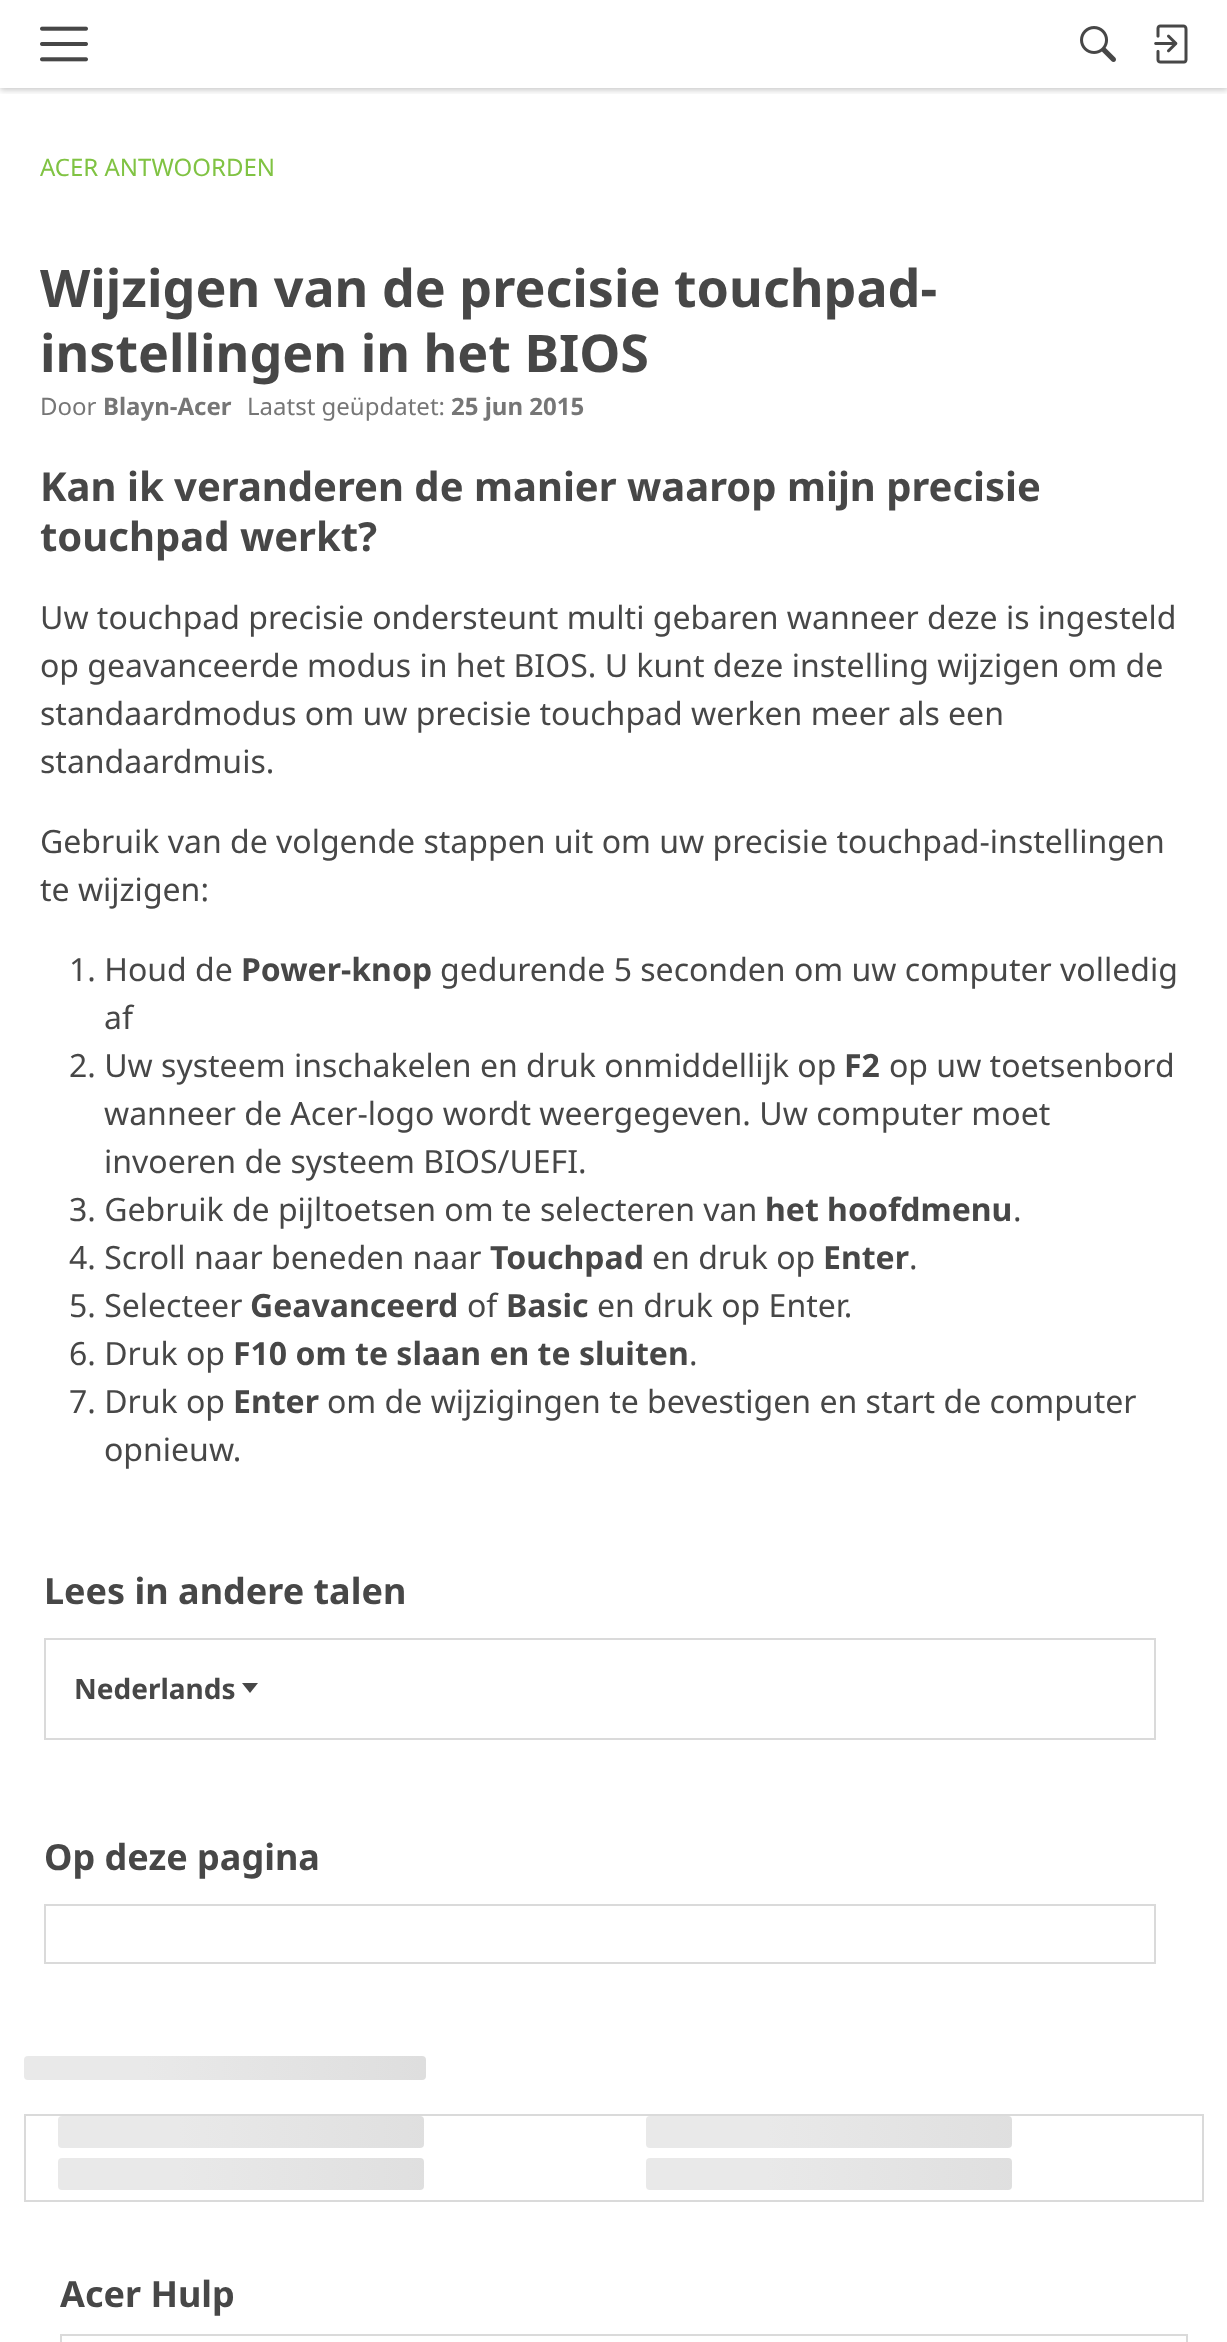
<!DOCTYPE html>
<meta charset="utf-8">
<style>body { margin: 0 } canvas { display: block }</style>
<canvas id="canvas" width="1227" height="2342"></canvas>
<img id="img1" src="img_01.png" hidden>
<img id="img2" src="img_02.png" hidden>
<img id="img3" src="img_03.png" hidden>
<script>
window.onload = function () {
	const canvas = document.getElementById("canvas");
	const ctx = canvas.getContext("2d");
	ctx.miterLimit = 4;
	ctx.fontKerning = "normal";
	function txt(s, x, y) {
		ctx.fillText(s, x, y);
	}
	function fill(x, y, w, h) {
		ctx.fillRect(x, y, w, h);
	}
	function round(x, y, w, h, r) {
		ctx.beginPath();
		ctx.roundRect(x, y, w, h, r);
		ctx.fill();
	}
	function img(id, x, y, w, h) {
		ctx.drawImage(document.getElementById(id), x, y, w, h);
	}
	let gradient;

	ctx.fillStyle = "#FFFFFF";
	fill(0, 0, 1227, 2342);
	ctx.save();
	ctx.beginPath();
	ctx.rect(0, 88, 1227, 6);
	ctx.clip();
	ctx.fillStyle = "rgba(0, 0, 0, 0.22)";
	ctx.filter = "blur(3px)";
	ctx.beginPath();
	ctx.rect(0, 2, 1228, 88);
	ctx.fill();
	ctx.filter = "none";
	ctx.restore();
	img("img1", 40, 26, 48, 36);
	img("img2", 1080, 26, 36, 36);
	img("img3", 1154, 24, 34, 40);
	ctx.strokeStyle = "#DADADA";
	ctx.lineWidth = 2;
	ctx.strokeRect(45, 1639, 1110, 100);
	ctx.fillStyle = "#474747";
	ctx.beginPath();
	ctx.moveTo(242, 1683);
	ctx.lineTo(258, 1683);
	ctx.lineTo(250, 1693);
	ctx.closePath();
	ctx.fill();
	ctx.strokeRect(45, 1905, 1110, 58);
	gradient = ctx.createLinearGradient(24, 2068, 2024, 2068);
	gradient.addColorStop(0.06, "#E9E9E9");
	gradient.addColorStop(0.25, "#DADADA");
	gradient.addColorStop(0.34, "#E9E9E9");
	ctx.fillStyle = gradient;
	round(24, 2056, 402, 24, 4);
	ctx.strokeRect(25, 2115, 1178, 86);
	gradient = ctx.createLinearGradient(58, 2132, 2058, 2132);
	gradient.addColorStop(0.06, "#E9E9E9");
	gradient.addColorStop(0.25, "#DADADA");
	gradient.addColorStop(0.34, "#E9E9E9");
	ctx.fillStyle = gradient;
	round(58, 2116, 366, 32, 4);
	gradient = ctx.createLinearGradient(646, 2132, 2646, 2132);
	gradient.addColorStop(0.06, "#E9E9E9");
	gradient.addColorStop(0.25, "#DADADA");
	gradient.addColorStop(0.34, "#E9E9E9");
	ctx.fillStyle = gradient;
	round(646, 2116, 366, 32, 4);
	gradient = ctx.createLinearGradient(58, 2174, 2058, 2174);
	gradient.addColorStop(0.06, "#E9E9E9");
	gradient.addColorStop(0.25, "#DADADA");
	gradient.addColorStop(0.34, "#E9E9E9");
	ctx.fillStyle = gradient;
	round(58, 2158, 366, 32, 4);
	gradient = ctx.createLinearGradient(646, 2174, 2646, 2174);
	gradient.addColorStop(0.06, "#E9E9E9");
	gradient.addColorStop(0.25, "#DADADA");
	gradient.addColorStop(0.34, "#E9E9E9");
	ctx.fillStyle = gradient;
	round(646, 2158, 366, 32, 4);
	ctx.strokeRect(61, 2335, 1126, 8);
	ctx.font = "24px Noto Sans";
	ctx.fillStyle = "#80C343";
	txt("ACER ANTWOORDEN", 40, 176);
	ctx.font = "bold 52px Noto Sans";
	ctx.fillStyle = "#474747";
	txt("Wijzigen van de precisie touchpad-", 40, 307);
	txt("instellingen in het BIOS", 40, 372);
	ctx.font = "24px Noto Sans";
	ctx.fillStyle = "#767676";
	txt("Door", 40, 415);
	ctx.font = "bold 24px Noto Sans";
	txt("Blayn-Acer", 103, 415);
	ctx.font = "24px Noto Sans";
	txt("Laatst geüpdatet:", 247, 415);
	ctx.font = "bold 24px Noto Sans";
	txt("25 jun 2015", 451, 415);
	ctx.font = "bold 40px Noto Sans";
	ctx.fillStyle = "#474747";
	txt("Kan ik veranderen de manier waarop mijn precisie", 40, 501);
	txt("touchpad werkt?", 40, 551);
	ctx.font = "32px Noto Sans";
	txt("Uw touchpad precisie ondersteunt multi gebaren wanneer deze is ingesteld", 40, 629);
	txt("op geavanceerde modus in het BIOS. U kunt deze instelling wijzigen om de", 40, 677);
	txt("standaardmodus om uw precisie touchpad werken meer als een", 40, 725);
	txt("standaardmuis.", 40, 773);
	txt("Gebruik van de volgende stappen uit om uw precisie touchpad-instellingen", 40, 853);
	txt("te wijzigen:", 40, 901);
	txt("1. Houd de", 69, 981);
	ctx.font = "bold 32px Noto Sans";
	txt("Power-knop", 241, 981);
	ctx.font = "32px Noto Sans";
	txt("gedurende 5 seconden om uw computer volledig", 440, 981);
	txt("af", 104, 1029);
	txt("2. Uw systeem inschakelen en druk onmiddellijk op", 69, 1077);
	ctx.font = "bold 32px Noto Sans";
	txt("F2", 844, 1077);
	ctx.font = "32px Noto Sans";
	txt("op uw toetsenbord", 889, 1077);
	txt("wanneer de Acer-logo wordt weergegeven. Uw computer moet", 104, 1125);
	txt("invoeren de systeem BIOS/UEFI.", 104, 1173);
	txt("3. Gebruik de pijltoetsen om te selecteren van", 69, 1221);
	ctx.font = "bold 32px Noto Sans";
	txt("het hoofdmenu", 765, 1221);
	ctx.font = "32px Noto Sans";
	txt(".", 1013, 1221);
	txt("4. Scroll naar beneden naar", 69, 1269);
	ctx.font = "bold 32px Noto Sans";
	txt("Touchpad", 490, 1269);
	ctx.font = "32px Noto Sans";
	txt("en druk op", 652, 1269);
	ctx.font = "bold 32px Noto Sans";
	txt("Enter", 823, 1269);
	ctx.font = "32px Noto Sans";
	txt(".", 909, 1269);
	txt("5. Selecteer", 69, 1317);
	ctx.font = "bold 32px Noto Sans";
	txt("Geavanceerd", 250, 1317);
	ctx.font = "32px Noto Sans";
	txt("of", 467, 1317);
	ctx.font = "bold 32px Noto Sans";
	txt("Basic", 506, 1317);
	ctx.font = "32px Noto Sans";
	txt("en druk op Enter.", 597, 1317);
	txt("6. Druk op", 69, 1365);
	ctx.font = "bold 32px Noto Sans";
	txt("F10 om te slaan en te sluiten", 233, 1365);
	ctx.font = "32px Noto Sans";
	txt(".", 689, 1365);
	txt("7. Druk op", 69, 1413);
	ctx.font = "bold 32px Noto Sans";
	txt("Enter", 233, 1413);
	ctx.font = "32px Noto Sans";
	txt("om de wijzigingen te bevestigen en start de computer", 327, 1413);
	txt("opnieuw.", 104, 1461);
	ctx.font = "bold 36px Noto Sans";
	txt("Lees in andere talen", 44, 1604);
	ctx.font = "bold 28px Noto Sans";
	txt("Nederlands", 74, 1699);
	ctx.font = "bold 36px Noto Sans";
	txt("Op deze pagina", 44, 1870);
	txt("Acer Hulp", 60, 2307);
};
</script>
